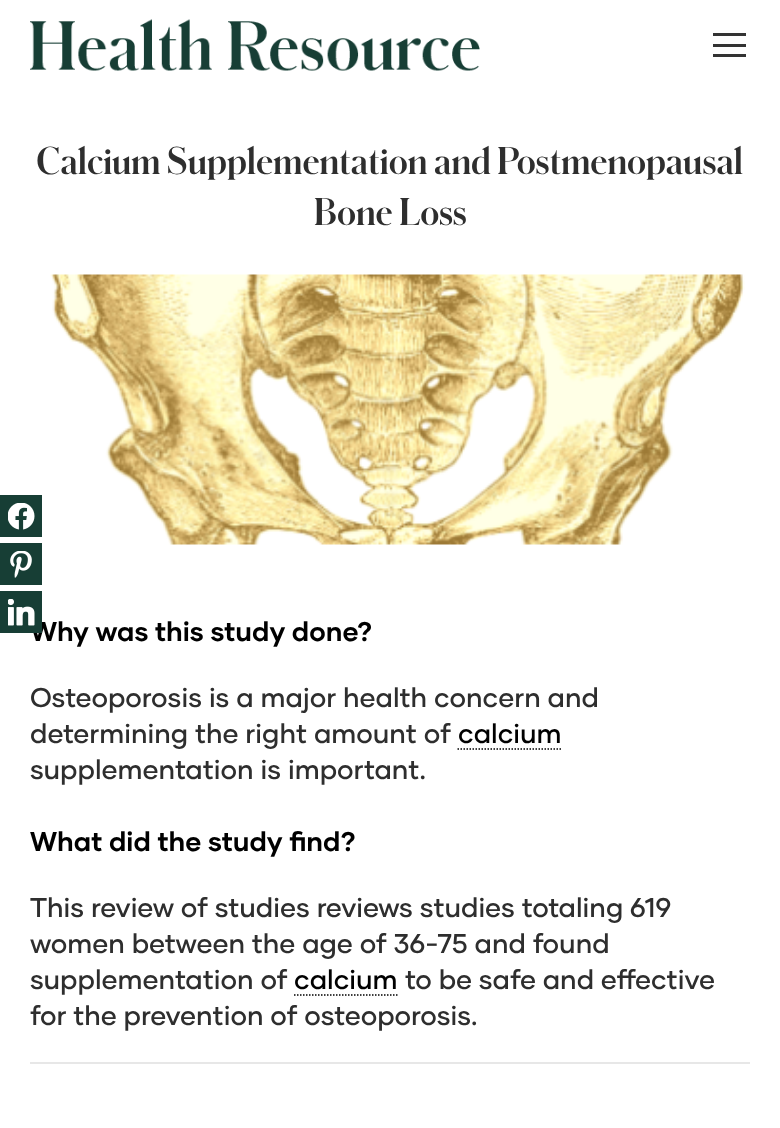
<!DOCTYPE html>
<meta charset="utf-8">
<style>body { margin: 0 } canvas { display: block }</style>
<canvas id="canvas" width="780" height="1128"></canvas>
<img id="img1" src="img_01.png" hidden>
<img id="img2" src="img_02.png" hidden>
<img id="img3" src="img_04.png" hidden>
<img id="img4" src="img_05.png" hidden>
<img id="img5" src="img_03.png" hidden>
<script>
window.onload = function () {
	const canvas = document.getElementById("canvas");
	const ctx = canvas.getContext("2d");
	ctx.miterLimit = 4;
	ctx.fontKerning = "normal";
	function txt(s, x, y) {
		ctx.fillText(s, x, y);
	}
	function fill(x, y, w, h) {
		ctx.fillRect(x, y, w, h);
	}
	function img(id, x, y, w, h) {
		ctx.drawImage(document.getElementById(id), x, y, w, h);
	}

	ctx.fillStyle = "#FFFFFF";
	fill(0, 0, 780, 1128);
	ctx.fillStyle = "#173E35";
	fill(0, 495, 42, 42);
	img("img1", 8, 503, 27, 27);
	fill(0, 543, 42, 42);
	img("img2", 10, 551, 22, 27);
	img("img3", 30, 19, 450, 52);
	ctx.fillStyle = "#333333";
	fill(713, 33, 33, 3);
	fill(713, 44, 33, 3);
	fill(713, 54, 33, 3);
	img("img4", 50, 274, 695, 271);
	ctx.beginPath();
	ctx.moveTo(457.5, 749);
	ctx.lineTo(561, 749);
	ctx.strokeStyle = "#000000";
	ctx.lineWidth = 1.5;
	ctx.setLineDash([1.5, 1.5]);
	ctx.stroke();
	ctx.beginPath();
	ctx.moveTo(294, 995);
	ctx.lineTo(397.5, 995);
	ctx.stroke();
	ctx.fillStyle = "#E7E7E7";
	fill(30, 1062, 720, 2);
	ctx.font = "bold 36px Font";
	ctx.fillStyle = "#2E2E2E";
	txt("Calcium Supplementation and Postmenopausal", 36, 174);
	txt("Bone Loss", 314, 225);
	ctx.font = "bold 27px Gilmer";
	ctx.fillStyle = "#000000";
	txt("Why was this study done?", 30, 641);
	ctx.fillStyle = "#173E35";
	fill(0, 591, 42, 42);
	img("img5", 8, 599, 27, 27);
	ctx.font = "500 27px Gilmer";
	ctx.fillStyle = "#2E2E2E";
	txt("Osteoporosis is a major health concern and", 30, 707);
	txt("determining the right amount of", 30, 743);
	ctx.fillStyle = "#000000";
	txt("calcium", 458, 743);
	ctx.fillStyle = "#2E2E2E";
	txt("supplementation is important.", 30, 779);
	ctx.font = "bold 27px Gilmer";
	ctx.fillStyle = "#000000";
	txt("What did the study find?", 30, 851);
	ctx.font = "500 27px Gilmer";
	ctx.fillStyle = "#2E2E2E";
	txt("This review of studies reviews studies totaling 619", 30, 917);
	txt("women between the age of 36-75 and found", 30, 953);
	txt("supplementation of", 30, 989);
	ctx.fillStyle = "#000000";
	txt("calcium", 294, 989);
	ctx.fillStyle = "#2E2E2E";
	txt("to be safe and effective", 405, 989);
	txt("for the prevention of osteoporosis.", 30, 1025);
};
</script>
